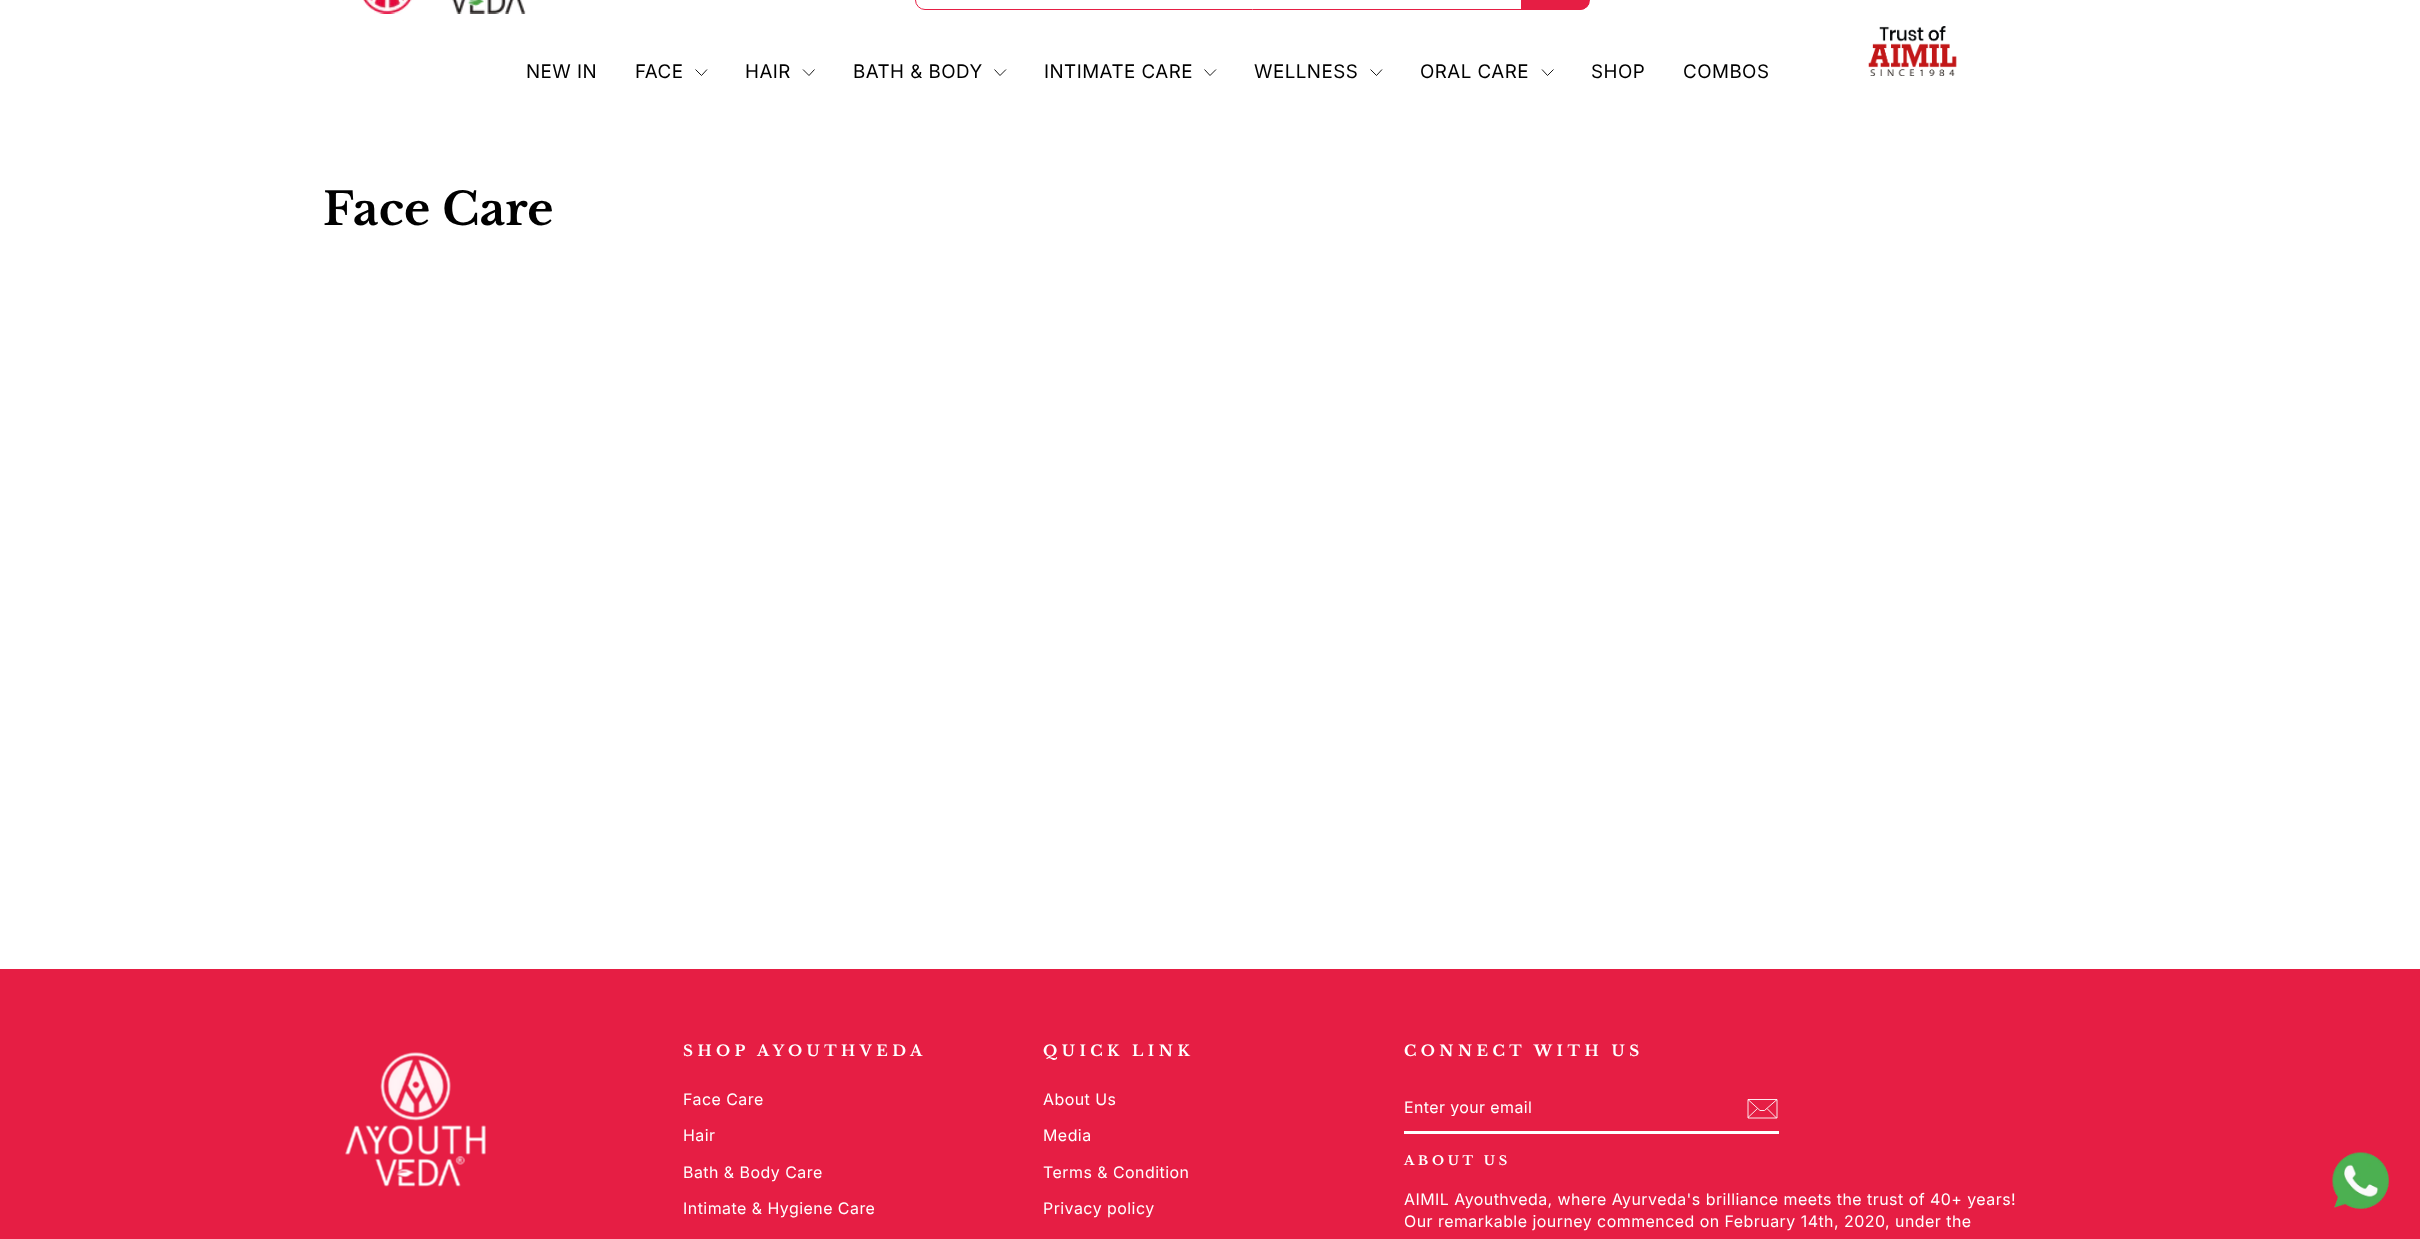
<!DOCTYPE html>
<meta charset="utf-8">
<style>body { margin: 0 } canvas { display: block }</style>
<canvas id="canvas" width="2420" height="1239"></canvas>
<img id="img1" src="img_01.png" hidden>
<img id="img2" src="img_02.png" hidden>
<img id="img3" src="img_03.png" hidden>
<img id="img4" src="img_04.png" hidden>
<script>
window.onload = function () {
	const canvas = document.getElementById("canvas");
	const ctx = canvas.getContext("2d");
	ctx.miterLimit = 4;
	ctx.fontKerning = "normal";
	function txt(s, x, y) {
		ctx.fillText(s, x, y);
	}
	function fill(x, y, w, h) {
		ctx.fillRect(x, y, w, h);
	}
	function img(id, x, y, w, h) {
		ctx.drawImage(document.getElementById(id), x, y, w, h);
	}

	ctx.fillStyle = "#FFFFFF";
	fill(0, 0, 2420, 1239);
	ctx.fillStyle = "rgba(0, 0, 0, 0.2)";
	ctx.filter = "blur(0.5px)";
	ctx.beginPath();
	ctx.rect(0, -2, 2420, 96);
	ctx.fill();
	ctx.filter = "none";
	ctx.fillStyle = "#FFFFFF";
	fill(0, 0, 2420, 94);
	img("img1", 363, 0, 163, 14);
	ctx.save();
	ctx.beginPath();
	ctx.roundRect(915, -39, 675, 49, 10);
	ctx.clip();
	ctx.fillStyle = "#E61E44";
	fill(1521, 0, 68, 10);
	ctx.restore();
	ctx.beginPath();
	ctx.roundRect(915.5, -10.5, 674, 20, 9.5);
	ctx.strokeStyle = "#E61E44";
	ctx.stroke();
	ctx.beginPath();
	ctx.moveTo(695.5, 69.5);
	ctx.lineTo(701.5, 75.5);
	ctx.lineTo(707, 69.5);
	ctx.strokeStyle = "#000000";
	ctx.lineWidth = 0.9;
	ctx.stroke();
	ctx.beginPath();
	ctx.moveTo(803, 69.5);
	ctx.lineTo(809, 75.5);
	ctx.lineTo(814.5, 69.5);
	ctx.stroke();
	ctx.beginPath();
	ctx.moveTo(994.5, 69.5);
	ctx.lineTo(1000, 75.5);
	ctx.lineTo(1006, 69.5);
	ctx.stroke();
	ctx.beginPath();
	ctx.moveTo(1204.5, 69.5);
	ctx.lineTo(1210, 75.5);
	ctx.lineTo(1216, 69.5);
	ctx.stroke();
	ctx.beginPath();
	ctx.moveTo(1370.5, 69.5);
	ctx.lineTo(1376.5, 75.5);
	ctx.lineTo(1382, 69.5);
	ctx.stroke();
	ctx.beginPath();
	ctx.moveTo(1542, 69.5);
	ctx.lineTo(1547.5, 75.5);
	ctx.lineTo(1553.5, 69.5);
	ctx.stroke();
	img("img2", 1868, 26, 89, 50);
	ctx.fillStyle = "#E61E44";
	fill(0, 969, 2420, 270);
	img("img3", 345, 1052, 141, 135);
	ctx.fillStyle = "#FFFFFF";
	fill(1404, 1131, 375, 3);
	ctx.beginPath();
	ctx.moveTo(1777, 1118);
	ctx.lineTo(1748, 1118);
	ctx.lineTo(1748, 1099.5);
	ctx.lineTo(1777, 1099.5);
	ctx.closePath();
	ctx.moveTo(1748, 1099.5);
	ctx.lineTo(1760, 1110.5);
	ctx.lineTo(1764.5, 1110.5);
	ctx.lineTo(1777, 1099.5);
	ctx.moveTo(1757.5, 1108.5);
	ctx.lineTo(1748, 1117.5);
	ctx.moveTo(1776.5, 1118);
	ctx.lineTo(1767, 1108.5);
	ctx.strokeStyle = "#FFFFFF";
	ctx.stroke();
	img("img4", 2332, 1152, 57, 57);
	ctx.letterSpacing = "0.47px";
	ctx.font = "18.75px Inter";
	ctx.fillStyle = "#000000";
	txt("NEW IN", 526, 78);
	txt("FACE", 635, 78);
	txt("HAIR", 745, 78);
	txt("BATH & BODY", 853, 78);
	txt("INTIMATE CARE", 1044, 78);
	txt("WELLNESS", 1254, 78);
	txt("ORAL CARE", 1420, 78);
	txt("SHOP", 1591, 78);
	txt("COMBOS", 1683, 78);
	ctx.letterSpacing = "0px";
	ctx.font = "bold 45px Libre Baskerville";
	txt("Face Care", 323, 225);
	ctx.letterSpacing = "4.5px";
	ctx.font = "bold 15px Libre Baskerville";
	ctx.fillStyle = "#FFFFFF";
	txt("SHOP AYOUTHVEDA", 683, 1056);
	ctx.letterSpacing = "0.47px";
	ctx.font = "15.95px Inter";
	txt("Face Care", 683, 1105);
	txt("Hair", 683, 1141);
	txt("Bath & Body Care", 683, 1178);
	txt("Intimate & Hygiene Care", 683, 1214);
	ctx.letterSpacing = "4.5px";
	ctx.font = "bold 15px Libre Baskerville";
	txt("QUICK LINK", 1043, 1056);
	ctx.letterSpacing = "0.47px";
	ctx.font = "15.95px Inter";
	txt("About Us", 1043, 1105);
	txt("Media", 1043, 1141);
	txt("Terms & Condition", 1043, 1178);
	txt("Privacy policy", 1043, 1214);
	ctx.letterSpacing = "4.5px";
	ctx.font = "bold 15px Libre Baskerville";
	txt("CONNECT WITH US", 1404, 1056);
	ctx.save();
	ctx.beginPath();
	ctx.rect(1404, 1098, 319, 18);
	ctx.clip();
	ctx.letterSpacing = "0.4px";
	ctx.font = "15.95px Inter";
	txt("Enter your email", 1404, 1113);
	ctx.restore();
	ctx.letterSpacing = "3.75px";
	ctx.font = "bold 12.75px Libre Baskerville";
	txt("ABOUT US", 1404, 1165);
	ctx.letterSpacing = "0.47px";
	ctx.font = "15.95px Inter";
	txt("AIMIL Ayouthveda, where Ayurveda's brilliance meets the trust of 40+ years!", 1404, 1205);
	txt("Our remarkable journey commenced on February 14th, 2020, under the", 1404, 1227);
};
</script>
